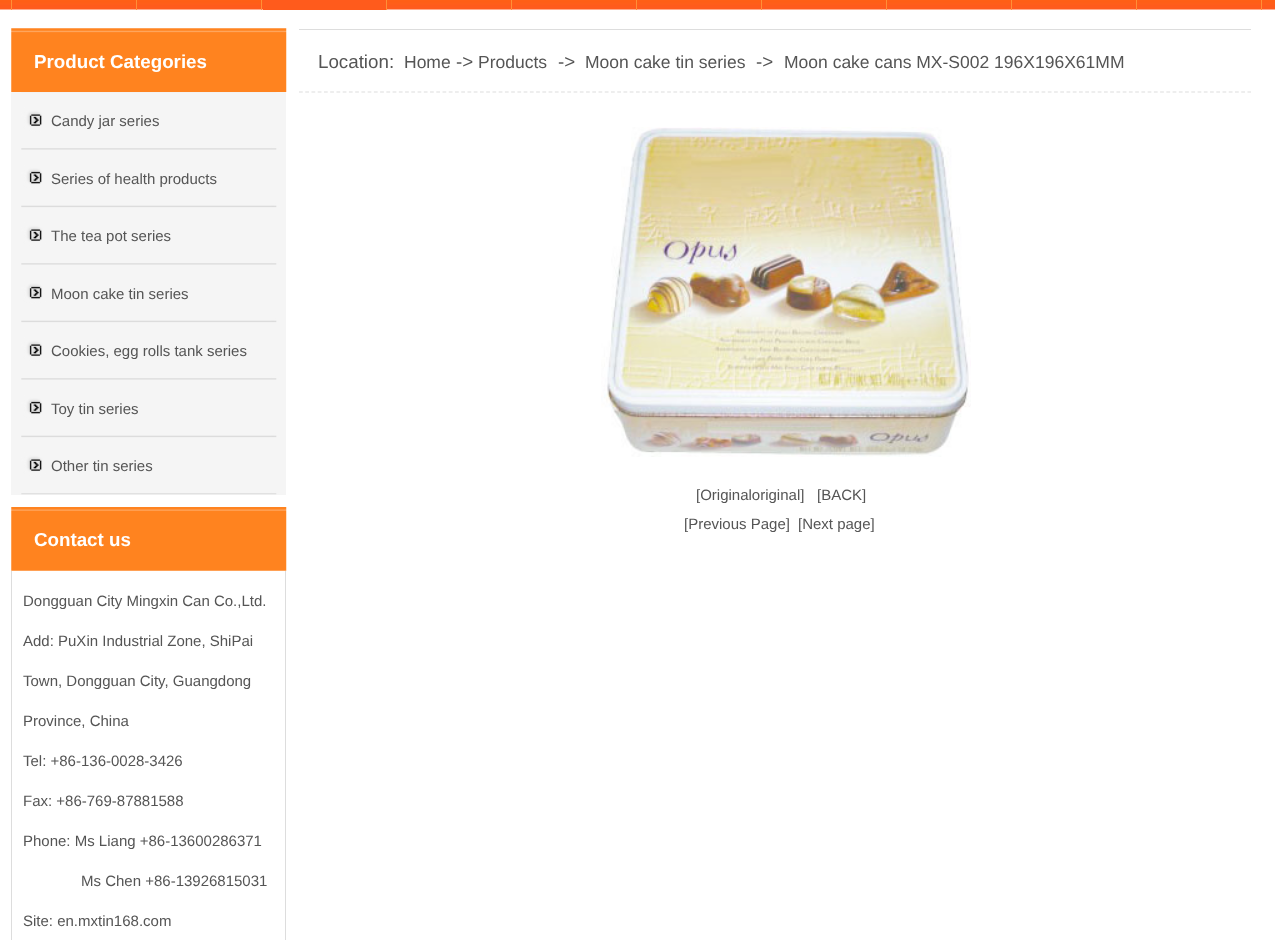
<!DOCTYPE html>
<meta charset="utf-8">
<style>body { margin: 0 } canvas { display: block }</style>
<canvas id="canvas" width="1275" height="940"></canvas>
<img id="img1" src="img_01.png" hidden>
<img id="img2" src="img_02.png" hidden>
<img id="img3" src="img_03.png" hidden>
<img id="img4" src="img_04.png" hidden>
<img id="img5" src="img_05.png" hidden>
<script>
window.onload = function () {
	const canvas = document.getElementById("canvas");
	const ctx = canvas.getContext("2d");
	ctx.miterLimit = 4;
	ctx.fontKerning = "normal";
	function txt(s, x, y) {
		ctx.fillText(s, x, y);
	}
	function fill(x, y, w, h) {
		ctx.fillRect(x, y, w, h);
	}
	function img(id, x, y, w, h) {
		ctx.drawImage(document.getElementById(id), x, y, w, h);
	}

	ctx.fillStyle = "#FFFFFF";
	fill(0, 0, 1275, 940);
	img("img1", 0, 0, 1275, 10);
	ctx.fillStyle = "#FF9037";
	fill(11, 0, 1, 10);
	fill(136, 0, 1, 10);
	fill(261, 0, 1, 10);
	ctx.fillStyle = "#FF5B1C";
	fill(263, 0, 123, 10);
	ctx.fillStyle = "#FF9037";
	fill(386, 0, 1, 10);
	fill(511, 0, 1, 10);
	fill(636, 0, 1, 10);
	fill(761, 0, 1, 10);
	fill(886, 0, 1, 10);
	fill(1011, 0, 1, 10);
	fill(1261, 0, 1, 10);
	fill(1136, 0, 1, 10);
	img("img2", 11, 28, 276, 64);
	ctx.fillStyle = "#F5F5F5";
	fill(11, 93, 275, 402);
	img("img3", 11, 92, 275, 403);
	img("img4", 11, 507, 276, 64);
	ctx.fillStyle = "#DDDDDD";
	fill(285, 571, 1, 369);
	fill(11, 571, 1, 369);
	fill(299, 29, 952, 1);
	ctx.beginPath();
	ctx.moveTo(299, 92);
	ctx.lineTo(1251, 92);
	ctx.strokeStyle = "#DDDDDD";
	ctx.lineWidth = 1.2;
	ctx.setLineDash([3.75, 2.49]);
	ctx.stroke();
	img("img5", 601, 127, 370, 330);
	ctx.font = "bold 18.75px Liberation Sans";
	ctx.fillStyle = "#FFFFFF";
	txt("Product Categories", 34, 68);
	ctx.font = "15px Liberation Sans";
	ctx.fillStyle = "#555555";
	txt("Candy jar series", 51, 126);
	txt("Series of health products", 51, 184);
	txt("The tea pot series", 51, 241);
	txt("Moon cake tin series", 51, 299);
	txt("Cookies, egg rolls tank series", 51, 356);
	txt("Toy tin series", 51, 414);
	txt("Other tin series", 51, 471);
	ctx.font = "bold 18.75px Liberation Sans";
	ctx.fillStyle = "#FFFFFF";
	txt("Contact us", 34, 546);
	ctx.font = "15px Liberation Sans";
	ctx.fillStyle = "#555555";
	txt("Dongguan City Mingxin Can Co.,Ltd.", 23, 606);
	txt("Add: PuXin Industrial Zone, ShiPai", 23, 646);
	txt("Town, Dongguan City, Guangdong", 23, 686);
	txt("Province, China", 23, 726);
	txt("Tel: +86-136-0028-3426", 23, 766);
	txt("Fax: +86-769-87881588", 23, 806);
	txt("Phone: Ms Liang +86-13600286371", 23, 846);
	txt("Ms Chen +86-13926815031", 81, 886);
	txt("Site: en.mxtin168.com", 23, 926);
	ctx.font = "18.75px Liberation Sans";
	txt("Location:", 318, 68);
	ctx.font = "17.5px Liberation Sans";
	txt("Home", 404, 68);
	ctx.font = "18.75px Liberation Sans";
	txt("->", 456, 68);
	ctx.font = "17.5px Liberation Sans";
	txt("Products", 478, 68);
	ctx.font = "18.75px Liberation Sans";
	txt("->", 558, 68);
	ctx.font = "17.5px Liberation Sans";
	txt("Moon cake tin series", 585, 68);
	ctx.font = "18.75px Liberation Sans";
	txt("->", 756, 68);
	ctx.font = "17.5px Liberation Sans";
	txt("Moon cake cans MX-S002 196X196X61MM", 784, 68);
	ctx.font = "15px Liberation Sans";
	txt("[Originaloriginal]", 696, 500);
	txt("[BACK]", 817, 500);
	txt("[Previous Page]", 684, 529);
	txt("[Next page]", 798, 529);
};
</script>
